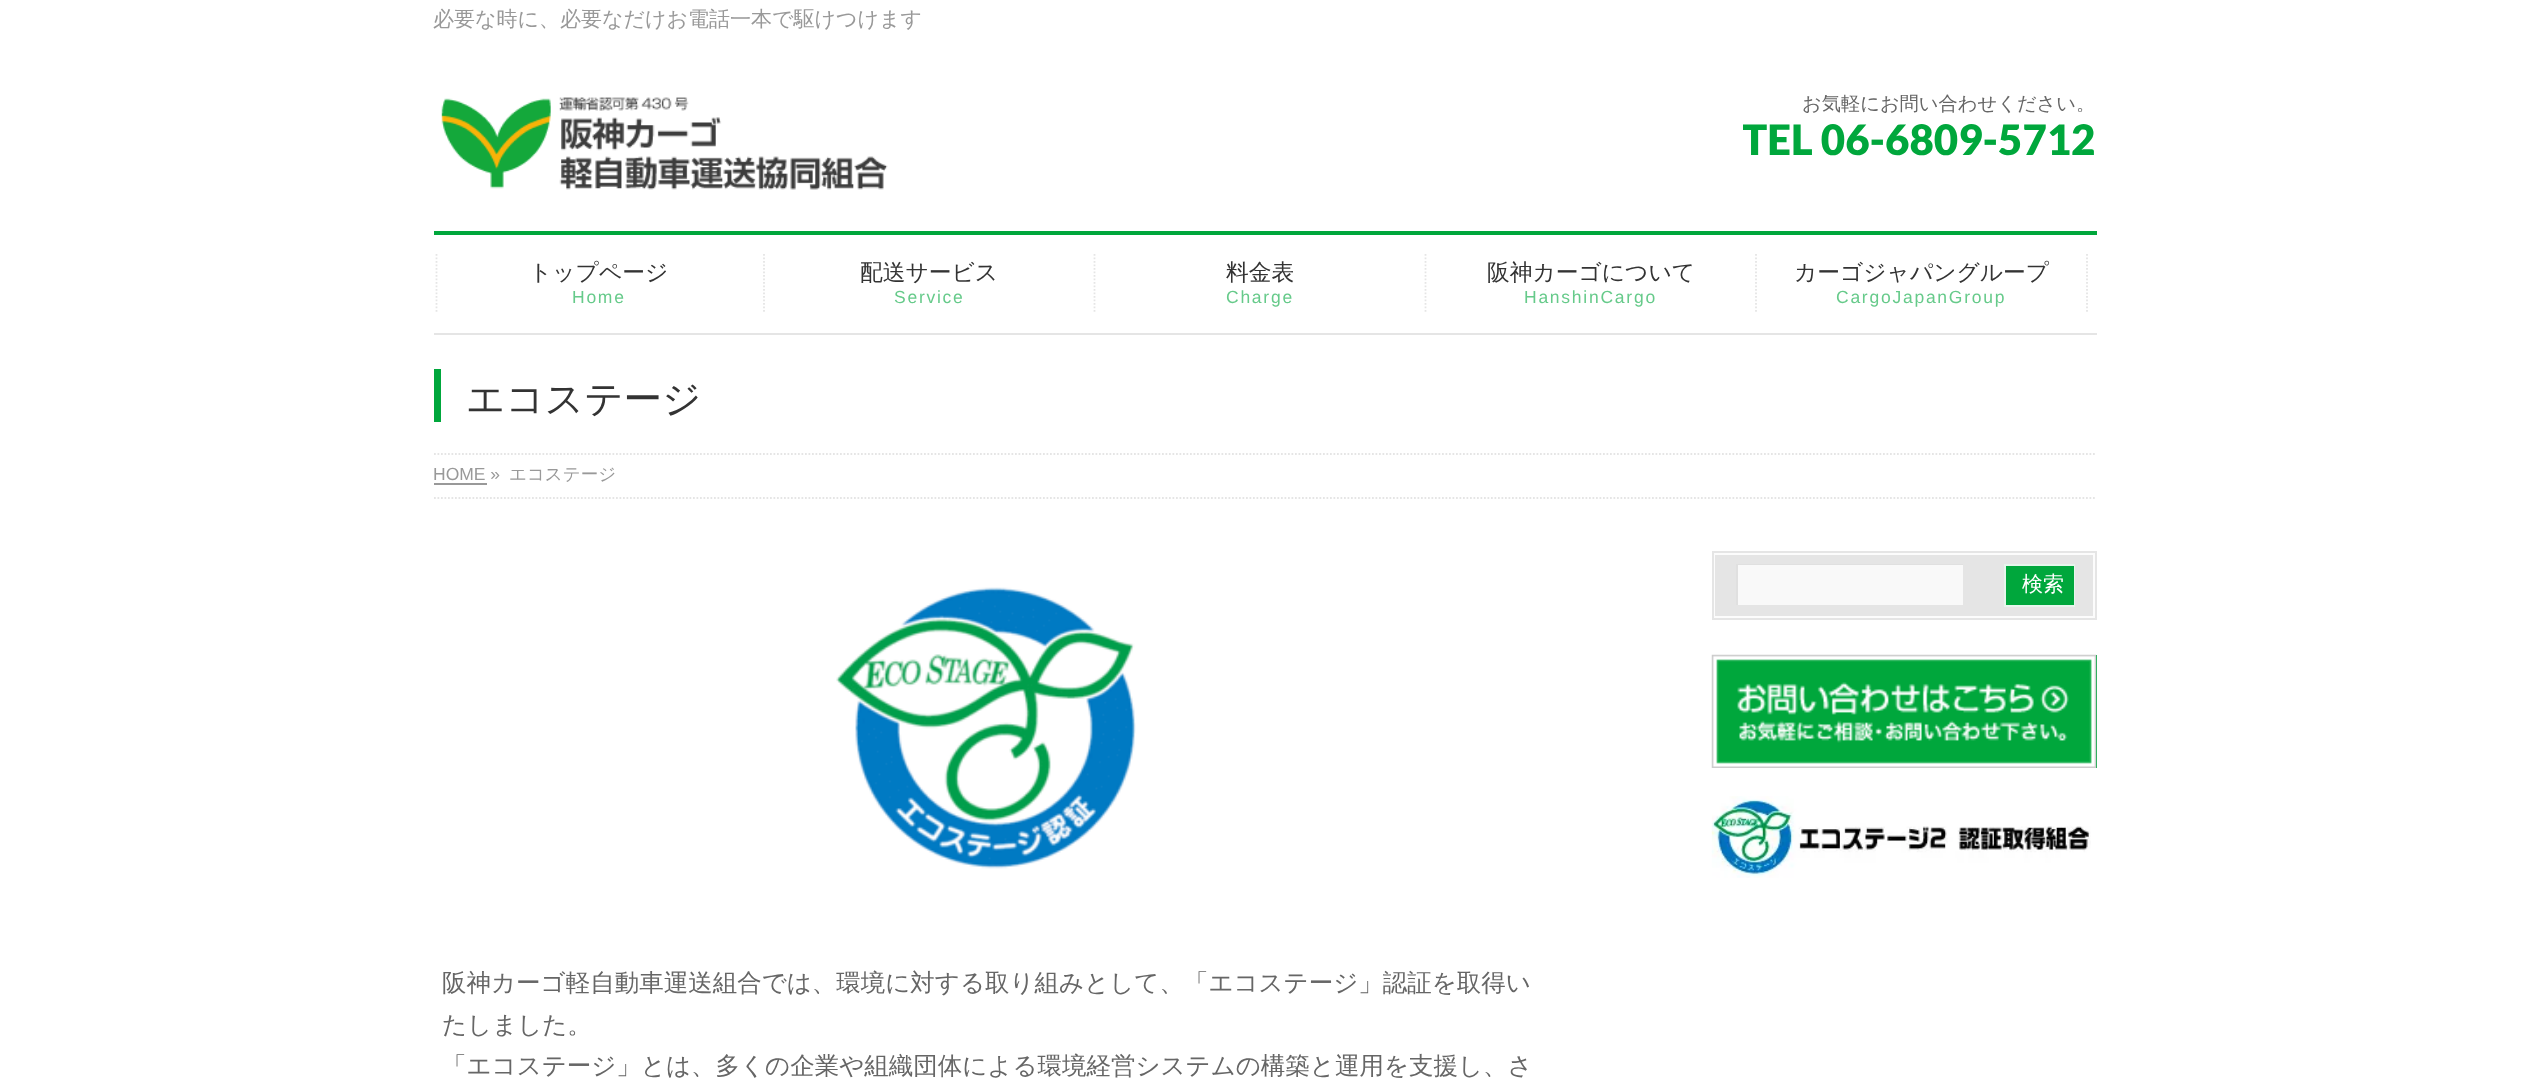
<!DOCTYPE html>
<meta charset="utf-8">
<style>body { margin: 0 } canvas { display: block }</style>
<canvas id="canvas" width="2528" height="1089"></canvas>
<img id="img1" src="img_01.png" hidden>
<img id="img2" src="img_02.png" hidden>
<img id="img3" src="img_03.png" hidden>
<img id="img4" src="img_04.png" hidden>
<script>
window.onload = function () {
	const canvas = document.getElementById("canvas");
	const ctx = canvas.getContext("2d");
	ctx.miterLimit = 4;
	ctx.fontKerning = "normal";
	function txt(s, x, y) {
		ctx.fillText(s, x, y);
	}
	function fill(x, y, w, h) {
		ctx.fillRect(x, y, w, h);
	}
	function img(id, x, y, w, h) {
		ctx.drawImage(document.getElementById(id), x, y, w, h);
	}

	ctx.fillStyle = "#FFFFFF";
	fill(0, 0, 2528, 1089);
	img("img1", 441, 97, 447, 93);
	ctx.fillStyle = "#00A73C";
	fill(434, 231, 1663, 4);
	ctx.fillStyle = "#E5E5E5";
	fill(434, 333, 1663, 2);
	ctx.beginPath();
	ctx.moveTo(436.5, 254);
	ctx.lineTo(436.5, 313);
	ctx.strokeStyle = "#E5E5E5";
	ctx.lineWidth = 1.8;
	ctx.setLineDash([1.75, 1.75]);
	ctx.stroke();
	ctx.beginPath();
	ctx.moveTo(764, 254);
	ctx.lineTo(764, 313);
	ctx.stroke();
	ctx.beginPath();
	ctx.moveTo(1094.5, 254);
	ctx.lineTo(1094.5, 313);
	ctx.stroke();
	ctx.beginPath();
	ctx.moveTo(1425.5, 254);
	ctx.lineTo(1425.5, 313);
	ctx.stroke();
	ctx.beginPath();
	ctx.moveTo(1756, 254);
	ctx.lineTo(1756, 313);
	ctx.stroke();
	ctx.beginPath();
	ctx.moveTo(2087, 254);
	ctx.lineTo(2087, 313);
	ctx.stroke();
	ctx.fillStyle = "#00A73C";
	fill(434, 369, 7, 53);
	ctx.beginPath();
	ctx.moveTo(434, 454);
	ctx.lineTo(2096.5, 454);
	ctx.stroke();
	ctx.beginPath();
	ctx.moveTo(434, 498);
	ctx.lineTo(2096.5, 498);
	ctx.stroke();
	ctx.fillStyle = "#999999";
	fill(434, 483, 53, 2);
	ctx.fillStyle = "#E5E5E5";
	ctx.beginPath();
	ctx.rect(1714, 554, 380, 63);
	ctx.fill();
	ctx.strokeStyle = "#FCFCFC";
	ctx.lineWidth = 2;
	ctx.setLineDash([]);
	ctx.stroke();
	ctx.strokeStyle = "#E5E5E5";
	ctx.strokeRect(1713, 552, 383, 67);
	ctx.fillStyle = "#F9F9F9";
	fill(1738, 565, 225, 40);
	ctx.save();
	ctx.beginPath();
	ctx.rect(1736, 564, 228, 42);
	ctx.clip();
	ctx.fillStyle = "#E0E0E0";
	ctx.beginPath();
	ctx.moveTo(1563, 390);
	ctx.lineTo(2137, 390);
	ctx.lineTo(2137, 779);
	ctx.lineTo(1563, 779);
	ctx.closePath();
	ctx.moveTo(1738, 565);
	ctx.lineTo(1965, 565);
	ctx.lineTo(1965, 607);
	ctx.lineTo(1738, 607);
	ctx.closePath();
	ctx.fill("evenodd");
	ctx.restore();
	ctx.strokeRect(1735, 563, 229, 43);
	ctx.fillStyle = "#00A73C";
	ctx.beginPath();
	ctx.rect(2005, 565, 70, 41);
	ctx.fill();
	ctx.strokeStyle = "#E6F6EC";
	ctx.stroke();
	ctx.strokeStyle = "#E5E5E5";
	ctx.strokeRect(2003, 563, 73, 45);
	fill(1716, 655, 381, 113);
	img("img2", 1711, 654, 386, 114);
	img("img3", 1711, 796, 380, 82);
	img("img4", 836, 587, 300, 282);
	ctx.font = "500 21px WenQuanYi Zen Hei";
	ctx.fillStyle = "#999999";
	txt("必要な時に、必要なだけお電話一本で駆けつけます", 433, 26);
	ctx.font = "500 19.25px WenQuanYi Zen Hei";
	ctx.fillStyle = "#666666";
	txt("お気軽にお問い合わせください。", 1802, 110);
	ctx.save();
	ctx.beginPath();
	ctx.rect(1743, 91, 354, 72);
	ctx.clip();
	ctx.font = "900 42px Lato";
	ctx.fillStyle = "#00A73C";
	txt("TEL 06-6809-5712", 1742, 155);
	ctx.restore();
	ctx.font = "500 22.75px WenQuanYi Zen Hei";
	ctx.fillStyle = "#333333";
	txt("トップページ", 529, 280);
	ctx.letterSpacing = "1.75px";
	ctx.font = "17.5px Liberation Sans";
	ctx.fillStyle = "#66CA8A";
	txt("Home", 572, 303);
	ctx.letterSpacing = "0px";
	ctx.font = "500 22.75px WenQuanYi Zen Hei";
	ctx.fillStyle = "#333333";
	txt("配送サービス", 860, 280);
	ctx.letterSpacing = "1.75px";
	ctx.font = "17.5px Liberation Sans";
	ctx.fillStyle = "#66CA8A";
	txt("Service", 894, 303);
	ctx.letterSpacing = "0px";
	ctx.font = "500 22.75px WenQuanYi Zen Hei";
	ctx.fillStyle = "#333333";
	txt("料金表", 1226, 280);
	ctx.letterSpacing = "1.75px";
	ctx.font = "17.5px Liberation Sans";
	ctx.fillStyle = "#66CA8A";
	txt("Charge", 1226, 303);
	ctx.letterSpacing = "0px";
	ctx.font = "500 22.75px WenQuanYi Zen Hei";
	ctx.fillStyle = "#333333";
	txt("阪神カーゴについて", 1487, 280);
	ctx.letterSpacing = "1.75px";
	ctx.font = "17.5px Liberation Sans";
	ctx.fillStyle = "#66CA8A";
	txt("HanshinCargo", 1524, 303);
	ctx.letterSpacing = "0px";
	ctx.font = "500 22.75px WenQuanYi Zen Hei";
	ctx.fillStyle = "#333333";
	txt("カーゴジャパングループ", 1794, 280);
	ctx.letterSpacing = "1.75px";
	ctx.font = "17.5px Liberation Sans";
	ctx.fillStyle = "#66CA8A";
	txt("CargoJapanGroup", 1836, 303);
	ctx.letterSpacing = "0px";
	ctx.font = "500 38.5px WenQuanYi Zen Hei";
	ctx.fillStyle = "#333333";
	txt("エコステージ", 466, 412);
	ctx.font = "17.5px Liberation Sans";
	ctx.fillStyle = "#999999";
	txt("HOME »", 433, 480);
	ctx.font = "500 17.5px WenQuanYi Zen Hei";
	txt("エコステージ", 509, 480);
	ctx.font = "500 21px WenQuanYi Zen Hei";
	ctx.fillStyle = "#FFFFFF";
	txt("検索", 2022, 591);
	ctx.font = "500 24.5px WenQuanYi Zen Hei";
	ctx.fillStyle = "#666666";
	txt("阪神カーゴ軽自動車運送組合では、環境に対する取り組みとして、「エコステージ」認証を取得い", 442, 991);
	txt("たしました。", 442, 1033);
	txt("「エコステージ」とは、多くの企業や組織団体による環境経営システムの構築と運用を支援し、さ", 442, 1074);
};
</script>
